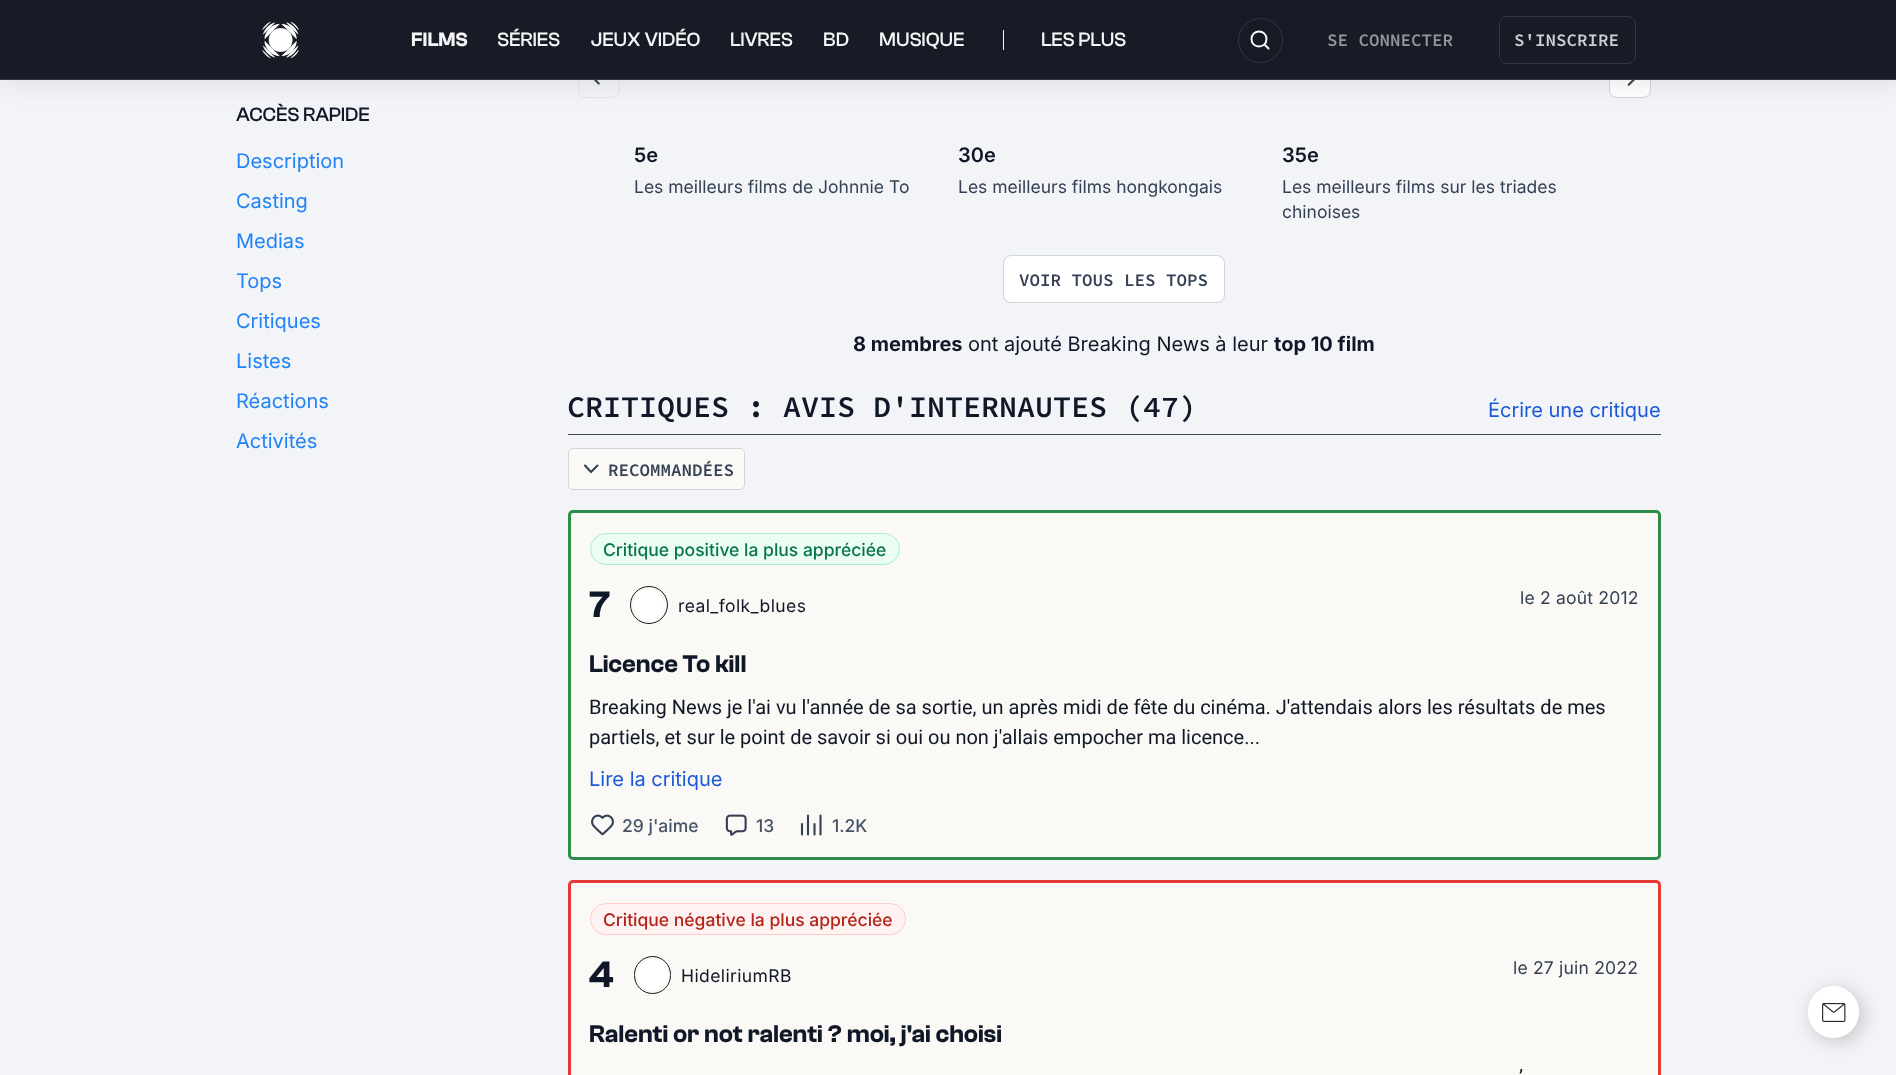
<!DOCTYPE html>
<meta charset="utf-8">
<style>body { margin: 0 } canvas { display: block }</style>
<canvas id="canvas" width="1896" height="1075"></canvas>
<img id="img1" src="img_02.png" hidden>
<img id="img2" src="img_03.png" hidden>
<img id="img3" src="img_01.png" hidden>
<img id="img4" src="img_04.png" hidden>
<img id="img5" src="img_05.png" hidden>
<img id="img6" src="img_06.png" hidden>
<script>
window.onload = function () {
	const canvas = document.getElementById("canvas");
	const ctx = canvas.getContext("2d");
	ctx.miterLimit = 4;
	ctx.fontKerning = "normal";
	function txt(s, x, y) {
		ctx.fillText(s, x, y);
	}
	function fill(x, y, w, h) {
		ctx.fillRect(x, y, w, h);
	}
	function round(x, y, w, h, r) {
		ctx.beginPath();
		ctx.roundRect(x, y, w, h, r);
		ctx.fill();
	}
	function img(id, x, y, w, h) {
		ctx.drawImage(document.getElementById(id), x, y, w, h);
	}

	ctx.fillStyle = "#F2F4F7";
	fill(0, 0, 1896, 1075);
	ctx.beginPath();
	ctx.roundRect(578.5, 55.5, 41, 42, 7.5);
	ctx.strokeStyle = "#E4E7EC";
	ctx.stroke();
	img("img1", 593, 80, 7, 5);
	ctx.fillStyle = "#FFFFFF";
	ctx.beginPath();
	ctx.roundRect(1609.5, 55.5, 41, 42, 7.5);
	ctx.fill();
	ctx.strokeStyle = "#D0D5DD";
	ctx.stroke();
	img("img2", 1627, 80, 8, 6);
	ctx.fillStyle = "rgba(26, 26, 26, 0.1)";
	ctx.filter = "blur(12.5px)";
	ctx.beginPath();
	ctx.rect(4, 4, 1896, 80);
	ctx.fill();
	ctx.filter = "none";
	ctx.fillStyle = "#161B26";
	fill(0, 0, 1896, 79);
	ctx.fillStyle = "#333741";
	fill(0, 79, 1896, 1);
	img("img3", 262, 21, 37, 38);
	ctx.fillStyle = "#F5F5F5";
	fill(1003, 30, 1, 20);
	ctx.beginPath();
	ctx.arc(1260.5, 40.5, 22, 0, Math.PI * 2);
	ctx.strokeStyle = "#333741";
	ctx.stroke();
	ctx.beginPath();
	ctx.moveTo(1268.5, 48.5);
	ctx.lineTo(1264.5, 44.5);
	ctx.moveTo(1266.5, 39);
	ctx.bezierCurveTo(1266.5, 49, 1251.5, 49, 1251.5, 39);
	ctx.bezierCurveTo(1251.5, 29, 1266.5, 29, 1266.5, 39);
	ctx.closePath();
	ctx.strokeStyle = "#FFFFFF";
	ctx.lineWidth = 1.9;
	ctx.lineCap = "round";
	ctx.lineJoin = "round";
	ctx.stroke();
	ctx.beginPath();
	ctx.roundRect(1499.5, 16.5, 136, 47, 7.5);
	ctx.strokeStyle = "#333741";
	ctx.lineWidth = 1;
	ctx.lineJoin = "miter";
	ctx.stroke();
	ctx.fillStyle = "#FFFFFF";
	ctx.beginPath();
	ctx.roundRect(1003.5, 255.5, 221, 47, 7.5);
	ctx.fill();
	ctx.strokeStyle = "#D0D5DD";
	ctx.stroke();
	ctx.fillStyle = "#434850";
	fill(568, 434, 1093, 1);
	ctx.fillStyle = "#FAF9F6";
	ctx.beginPath();
	ctx.roundRect(568.5, 448.5, 176, 41, 4.5);
	ctx.fill();
	ctx.stroke();
	ctx.beginPath();
	ctx.moveTo(585, 465.5);
	ctx.lineTo(591, 472);
	ctx.lineTo(597.5, 465.5);
	ctx.strokeStyle = "#344054";
	ctx.lineWidth = 2.1;
	ctx.lineJoin = "round";
	ctx.stroke();
	ctx.beginPath();
	ctx.roundRect(569.5, 511.5, 1090, 347, 3.5);
	ctx.fill();
	ctx.strokeStyle = "#2E8C4A";
	ctx.lineWidth = 3;
	ctx.lineJoin = "miter";
	ctx.stroke();
	ctx.fillStyle = "#ECFDF3";
	ctx.beginPath();
	ctx.roundRect(590.5, 533.5, 309, 31, 15.5);
	ctx.fill();
	ctx.strokeStyle = "#ABEFC6";
	ctx.lineWidth = 1;
	ctx.stroke();
	ctx.beginPath();
	ctx.arc(649, 605, 18.5, 0, Math.PI * 2);
	ctx.strokeStyle = "#1A1A1A";
	ctx.stroke();
	ctx.fillStyle = "#FFFFFF";
	ctx.beginPath();
	ctx.arc(649, 605, 15, 0, Math.PI * 2);
	ctx.fill();
	img("img4", 591, 814, 23, 22);
	img("img5", 725, 814, 22, 22);
	ctx.beginPath();
	ctx.moveTo(802, 824);
	ctx.lineTo(802, 834.5);
	ctx.moveTo(814.5, 824);
	ctx.lineTo(814.5, 834.5);
	ctx.moveTo(808, 815.5);
	ctx.lineTo(808, 834.5);
	ctx.moveTo(820.5, 815.5);
	ctx.lineTo(820.5, 834.5);
	ctx.strokeStyle = "#344054";
	ctx.lineWidth = 2.1;
	ctx.lineJoin = "round";
	ctx.stroke();
	ctx.fillStyle = "#FAF9F6";
	ctx.beginPath();
	ctx.roundRect(569.5, 881.5, 1090, 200, 3.5);
	ctx.fill();
	ctx.strokeStyle = "#E53935";
	ctx.lineWidth = 3;
	ctx.lineJoin = "miter";
	ctx.stroke();
	ctx.fillStyle = "#FEF3F2";
	ctx.beginPath();
	ctx.roundRect(590.5, 903.5, 315, 31, 15.5);
	ctx.fill();
	ctx.strokeStyle = "#FECDCA";
	ctx.lineWidth = 1;
	ctx.stroke();
	ctx.beginPath();
	ctx.roundRect(634.5, 956.5, 36, 37, 18);
	ctx.strokeStyle = "#1A1A1A";
	ctx.stroke();
	ctx.fillStyle = "#FFFFFF";
	ctx.beginPath();
	ctx.arc(653, 975, 15, 0, Math.PI * 2);
	ctx.fill();
	ctx.fillStyle = "rgba(0, 0, 0, 0.2)";
	ctx.filter = "blur(9.5px)";
	ctx.beginPath();
	ctx.roundRect(1811, 990, 52, 51, 25.5);
	ctx.fill();
	ctx.filter = "none";
	ctx.fillStyle = "#FFFFFF";
	round(1808, 986, 51, 52, 25.5);
	img("img6", 1822, 1003, 24, 19);
	ctx.font = "600 20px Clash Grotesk";
	ctx.fillStyle = "#F5F5F6";
	txt("FILMS", 411, 46);
	ctx.font = "500 20px Clash Grotesk";
	txt("SÉRIES", 497, 46);
	txt("JEUX VIDÉO", 591, 46);
	txt("LIVRES", 730, 46);
	txt("BD", 823, 46);
	txt("MUSIQUE", 879, 46);
	txt("LES PLUS", 1041, 46);
	ctx.font = "600 17.5px Source Code Pro";
	ctx.fillStyle = "#94969C";
	txt("SE CONNECTER", 1327, 46);
	ctx.fillStyle = "#CECFD2";
	txt("S'INSCRIRE", 1514, 46);
	ctx.font = "500 20px Clash Grotesk";
	ctx.fillStyle = "#101828";
	txt("ACCÈS RAPIDE", 236, 121);
	ctx.font = "20px Inter";
	ctx.fillStyle = "#2083F6";
	txt("Description", 236, 168);
	txt("Casting", 236, 208);
	txt("Medias", 236, 248);
	txt("Tops", 236, 288);
	txt("Critiques", 236, 328);
	txt("Listes", 236, 368);
	txt("Réactions", 236, 408);
	txt("Activités", 236, 448);
	ctx.font = "600 20px Inter";
	ctx.fillStyle = "#101828";
	txt("5e", 634, 162);
	ctx.font = "17.5px Inter";
	ctx.fillStyle = "#344054";
	txt("Les meilleurs films de Johnnie To", 634, 193);
	ctx.font = "600 20px Inter";
	ctx.fillStyle = "#101828";
	txt("30e", 958, 162);
	ctx.font = "17.5px Inter";
	ctx.fillStyle = "#344054";
	txt("Les meilleurs films hongkongais", 958, 193);
	ctx.font = "600 20px Inter";
	ctx.fillStyle = "#101828";
	txt("35e", 1282, 162);
	ctx.font = "17.5px Inter";
	ctx.fillStyle = "#344054";
	txt("Les meilleurs films sur les triades", 1282, 193);
	ctx.save();
	ctx.beginPath();
	ctx.rect(1283, 174, 311, 50);
	ctx.clip();
	txt("chinoises", 1282, 218);
	ctx.restore();
	ctx.font = "600 17.5px Source Code Pro";
	txt("VOIR TOUS LES TOPS", 1019, 286);
	ctx.font = "bold 20px Inter";
	ctx.fillStyle = "#101828";
	txt("8 membres", 853, 351);
	ctx.font = "20px Inter";
	txt("ont ajouté Breaking News à leur", 968, 351);
	ctx.font = "bold 20px Inter";
	txt("top 10 film", 1274, 351);
	ctx.font = "600 30px Source Code Pro";
	txt("CRITIQUES : AVIS D'INTERNAUTES (47)", 567, 417);
	ctx.font = "20px Inter";
	ctx.fillStyle = "#1959D7";
	txt("Écrire une critique", 1488, 417);
	ctx.font = "600 17.5px Source Code Pro";
	ctx.fillStyle = "#344054";
	txt("RECOMMANDÉES", 608, 476);
	ctx.font = "500 17.5px Inter";
	ctx.fillStyle = "#067647";
	txt("Critique positive la plus appréciée", 603, 556);
	ctx.font = "600 38px Clash Grotesk";
	ctx.fillStyle = "#101828";
	txt("7", 589, 617);
	ctx.letterSpacing = "0.4px";
	ctx.font = "17.5px Inter";
	txt("real_folk_blues", 678, 612);
	ctx.letterSpacing = "0.2px";
	ctx.fillStyle = "#344054";
	txt("le 2 août 2012", 1520, 604);
	ctx.letterSpacing = "0px";
	ctx.font = "600 25px Clash Grotesk";
	ctx.fillStyle = "#101828";
	txt("Licence To kill", 589, 672);
	ctx.font = "20px Roboto";
	txt("Breaking News je l'ai vu l'année de sa sortie, un après midi de fête du cinéma. J'attendais alors les résultats de mes", 589, 714);
	txt("partiels, et sur le point de savoir si oui ou non j'allais empocher ma licence...", 589, 744);
	ctx.font = "20px Inter";
	ctx.fillStyle = "#1959D7";
	txt("Lire la critique", 589, 786);
	ctx.font = "500 17.5px Inter";
	ctx.fillStyle = "#475467";
	txt("29 j'aime", 622, 832);
	txt("13", 756, 832);
	txt("1.2K", 832, 832);
	ctx.fillStyle = "#B42318";
	txt("Critique négative la plus appréciée", 603, 926);
	ctx.font = "600 38px Clash Grotesk";
	ctx.fillStyle = "#101828";
	txt("4", 589, 987);
	ctx.letterSpacing = "0.4px";
	ctx.font = "17.5px Inter";
	txt("HideliriumRB", 681, 982);
	ctx.letterSpacing = "0.2px";
	ctx.fillStyle = "#344054";
	txt("le 27 juin 2022", 1513, 974);
	ctx.letterSpacing = "0px";
	ctx.font = "600 25px Clash Grotesk";
	ctx.fillStyle = "#101828";
	txt("Ralenti or not ralenti ? moi, j'ai choisi", 589, 1042);
	ctx.font = "20px Roboto";
	txt("’", 1519, 1084);
};
</script>
